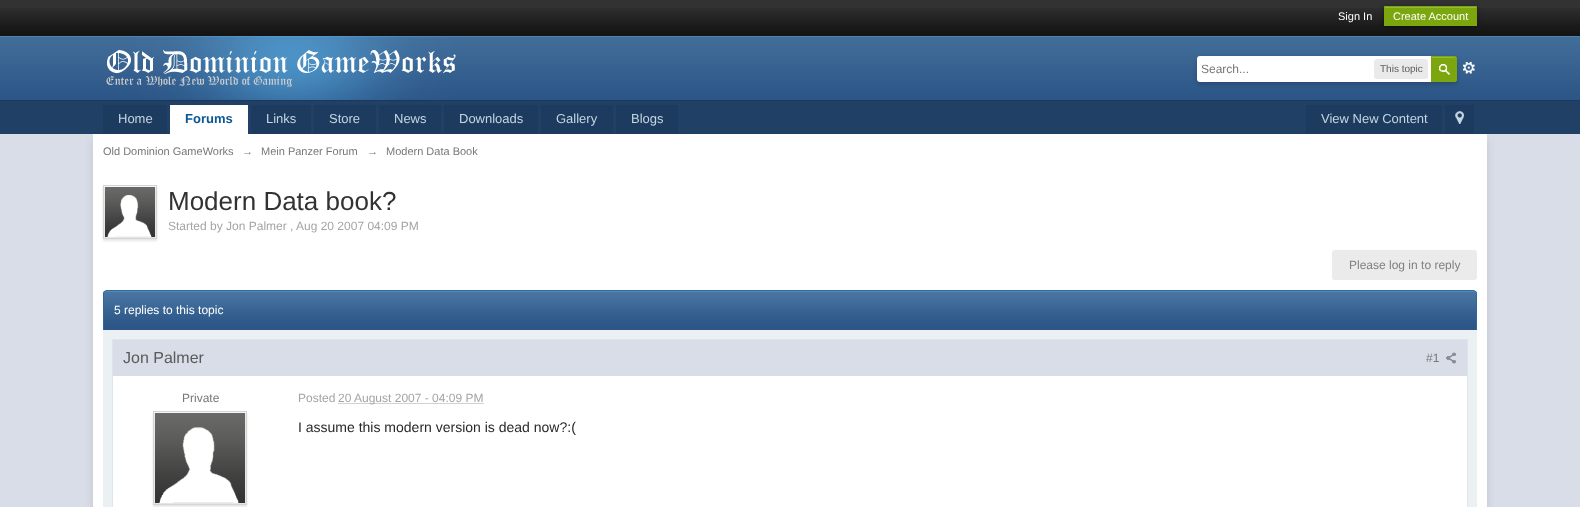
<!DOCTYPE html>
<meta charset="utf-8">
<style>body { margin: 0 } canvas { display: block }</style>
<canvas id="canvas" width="1580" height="507"></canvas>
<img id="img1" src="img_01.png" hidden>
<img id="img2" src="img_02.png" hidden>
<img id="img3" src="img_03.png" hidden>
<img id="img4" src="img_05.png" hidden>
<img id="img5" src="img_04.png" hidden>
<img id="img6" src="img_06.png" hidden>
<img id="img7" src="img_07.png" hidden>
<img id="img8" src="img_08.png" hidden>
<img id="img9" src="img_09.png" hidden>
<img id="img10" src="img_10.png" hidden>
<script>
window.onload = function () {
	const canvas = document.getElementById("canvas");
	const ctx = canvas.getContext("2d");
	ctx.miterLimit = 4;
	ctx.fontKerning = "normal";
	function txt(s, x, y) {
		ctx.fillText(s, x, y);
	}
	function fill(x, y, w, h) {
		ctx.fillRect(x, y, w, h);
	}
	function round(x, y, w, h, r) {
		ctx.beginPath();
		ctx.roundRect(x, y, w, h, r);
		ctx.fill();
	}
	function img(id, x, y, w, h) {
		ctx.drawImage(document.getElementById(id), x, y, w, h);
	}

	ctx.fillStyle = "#D8DDE8";
	fill(0, 0, 1580, 507);
	ctx.fillStyle = "#323232";
	fill(0, 0, 1580, 8);
	img("img1", 0, 8, 1580, 28);
	ctx.fillStyle = "rgba(0, 0, 0, 0.4)";
	ctx.filter = "blur(2px)";
	ctx.beginPath();
	ctx.rect(1384, 7, 93, 20);
	ctx.fill();
	ctx.filter = "none";
	ctx.fillStyle = "#7BA60D";
	fill(1384, 6, 93, 20);
	ctx.fillStyle = "#95B83D";
	fill(1385, 7, 91, 1);
	img("img2", 0, 36, 1580, 64);
	ctx.fillStyle = "#1B3759";
	fill(0, 100, 1580, 1);
	img("img3", 106, 36, 350, 64);
	img("img4", 1463, 62, 12, 12);
	ctx.fillStyle = "rgba(0, 0, 0, 0.2)";
	ctx.filter = "blur(2px)";
	ctx.beginPath();
	ctx.roundRect(1197, 58, 260, 26, 4);
	ctx.fill();
	ctx.filter = "none";
	ctx.fillStyle = "#FFFFFF";
	ctx.beginPath();
	ctx.roundRect(1197, 56, 260, 26, [3, 4, 4, 3]);
	ctx.fill();
	ctx.fillStyle = "#EAEAEA";
	round(1374, 59, 54, 20, 3);
	ctx.fillStyle = "#7BA60D";
	ctx.beginPath();
	ctx.roundRect(1431, 56, 26, 26, [0, 3, 3, 0]);
	ctx.fill();
	img("img5", 1439, 64, 11, 11);
	ctx.fillStyle = "#95B83D";
	ctx.beginPath();
	ctx.moveTo(1432, 58);
	ctx.lineTo(1454, 58);
	ctx.bezierCurveTo(1455, 58, 1456, 59, 1456, 60);
	ctx.lineTo(1456, 59);
	ctx.bezierCurveTo(1456, 58, 1455, 57, 1454, 57);
	ctx.lineTo(1432, 57);
	ctx.closePath();
	ctx.fill();
	ctx.beginPath();
	ctx.roundRect(1431.5, 56.5, 25, 25, [0, 2.5, 2.5, 0]);
	ctx.strokeStyle = "#7BA60D";
	ctx.stroke();
	ctx.fillStyle = "#204066";
	fill(0, 101, 1580, 33);
	ctx.fillStyle = "rgba(0, 0, 0, 0.1)";
	ctx.filter = "blur(4.5px)";
	ctx.beginPath();
	ctx.rect(93, 139, 1394, 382);
	ctx.fill();
	ctx.filter = "none";
	ctx.fillStyle = "#1C3B5F";
	fill(103, 105, 64, 29);
	ctx.fillStyle = "#FFFFFF";
	fill(170, 105, 78, 29);
	ctx.fillStyle = "#1C3B5F";
	fill(251, 105, 60, 29);
	fill(314, 105, 62, 29);
	fill(379, 105, 62, 29);
	fill(444, 105, 94, 29);
	fill(541, 105, 72, 29);
	fill(616, 105, 62, 29);
	fill(1306, 105, 136, 29);
	fill(1445, 105, 29, 29);
	img("img6", 1455, 111, 9, 13);
	ctx.fillStyle = "#FFFFFF";
	fill(93, 134, 1394, 373);
	ctx.fillStyle = "rgba(0, 0, 0, 0.1)";
	ctx.filter = "blur(1px)";
	ctx.beginPath();
	ctx.rect(103, 187, 54, 54);
	ctx.fill();
	ctx.filter = "none";
	ctx.strokeStyle = "#D5D5D5";
	ctx.strokeRect(103.5, 185.5, 53, 53);
	img("img7", 105, 187, 50, 50);
	ctx.fillStyle = "#EBEBEB";
	round(1332, 250, 145, 30, 3);
	ctx.fillStyle = "#2C5687";
	fill(104, 326, 1372, 4);
	img("img8", 103, 291, 1374, 35);
	ctx.fillStyle = "#528CBC";
	ctx.beginPath();
	ctx.moveTo(107, 292);
	ctx.lineTo(1473, 292);
	ctx.bezierCurveTo(1475, 292, 1476, 293, 1476, 295);
	ctx.lineTo(1476, 294);
	ctx.bezierCurveTo(1476, 292, 1475, 291, 1473, 291);
	ctx.lineTo(107, 291);
	ctx.bezierCurveTo(105, 291, 104, 292, 104, 294);
	ctx.lineTo(104, 295);
	ctx.bezierCurveTo(104, 293, 105, 292, 107, 292);
	ctx.closePath();
	ctx.fill();
	ctx.fillStyle = "#316897";
	ctx.beginPath();
	ctx.moveTo(107, 290);
	ctx.lineTo(1473, 290);
	ctx.bezierCurveTo(1475, 290, 1477, 292, 1477, 294);
	ctx.lineTo(1477, 330);
	ctx.lineTo(103, 330);
	ctx.lineTo(103, 294);
	ctx.bezierCurveTo(103, 292, 105, 290, 107, 290);
	ctx.closePath();
	ctx.moveTo(107, 291);
	ctx.lineTo(1473, 291);
	ctx.bezierCurveTo(1475, 291, 1476, 292, 1476, 294);
	ctx.lineTo(1476, 330);
	ctx.lineTo(104, 330);
	ctx.lineTo(104, 294);
	ctx.bezierCurveTo(104, 292, 105, 291, 107, 291);
	ctx.closePath();
	ctx.fill("evenodd");
	ctx.fillStyle = "#EBF0F3";
	fill(103, 330, 1374, 177);
	ctx.fillStyle = "#FFFFFF";
	fill(113, 376, 1354, 131);
	ctx.strokeStyle = "#DBE4EF";
	ctx.strokeRect(112.5, 339.5, 1355, 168);
	ctx.fillStyle = "#D8DDE8";
	fill(113, 340, 1354, 36);
	img("img9", 1446, 352, 10, 12);
	ctx.fillStyle = "rgba(0, 0, 0, 0.1)";
	ctx.filter = "blur(1px)";
	ctx.beginPath();
	ctx.rect(153, 413, 94, 94);
	ctx.fill();
	ctx.filter = "none";
	ctx.strokeStyle = "#D5D5D5";
	ctx.strokeRect(153.5, 411.5, 93, 93);
	img("img10", 155, 413, 90, 90);
	ctx.beginPath();
	ctx.moveTo(338.5, 403.5);
	ctx.lineTo(484, 403.5);
	ctx.strokeStyle = "#A4A4A4";
	ctx.setLineDash([1, 1]);
	ctx.stroke();
	ctx.font = "11px Liberation Sans";
	ctx.fillStyle = "#FFFFFF";
	txt("Sign In", 1338, 20);
	txt("Create Account", 1393, 20);
	ctx.font = "12px Liberation Sans";
	ctx.fillStyle = "#777777";
	txt("Search...", 1201, 73);
	ctx.font = "10px Liberation Sans";
	ctx.fillStyle = "#5A5A5A";
	txt("This topic", 1380, 72);
	ctx.font = "13px Liberation Sans";
	ctx.fillStyle = "#C5D5E2";
	txt("Home", 118, 123);
	ctx.font = "bold 13px Liberation Sans";
	ctx.fillStyle = "#0B5794";
	txt("Forums", 185, 123);
	ctx.font = "13px Liberation Sans";
	ctx.fillStyle = "#C5D5E2";
	txt("Links", 266, 123);
	txt("Store", 329, 123);
	txt("News", 394, 123);
	txt("Downloads", 459, 123);
	txt("Gallery", 556, 123);
	txt("Blogs", 631, 123);
	txt("View New Content", 1321, 123);
	ctx.font = "11px Liberation Sans";
	ctx.fillStyle = "#777777";
	txt("Old Dominion GameWorks", 103, 155);
	txt("→", 242, 155);
	txt("Mein Panzer Forum", 261, 155);
	txt("→", 367, 155);
	txt("Modern Data Book", 386, 155);
	ctx.font = "26px Liberation Sans";
	ctx.fillStyle = "#323232";
	txt("Modern Data book?", 168, 210);
	ctx.font = "12px Liberation Sans";
	ctx.fillStyle = "#A4A4A4";
	txt("Started by Jon Palmer ,", 168, 230);
	txt("Aug 20 2007 04:09 PM", 296, 230);
	ctx.fillStyle = "#7F7F7F";
	txt("Please log in to reply", 1349, 269);
	ctx.fillStyle = "#FFFFFF";
	txt("5 replies to this topic", 114, 314);
	ctx.font = "16px Liberation Sans";
	ctx.fillStyle = "#5A5A5A";
	txt("Jon Palmer", 123, 363);
	ctx.font = "12px Liberation Sans";
	ctx.fillStyle = "#777777";
	txt("#1", 1426, 362);
	txt("Private", 182, 402);
	ctx.fillStyle = "#A4A4A4";
	txt("Posted", 298, 402);
	txt("20 August 2007 - 04:09 PM", 338, 402);
	ctx.font = "14px Liberation Sans";
	ctx.fillStyle = "#282828";
	txt("I assume this modern version is dead now?:(", 298, 432);
};
</script>
